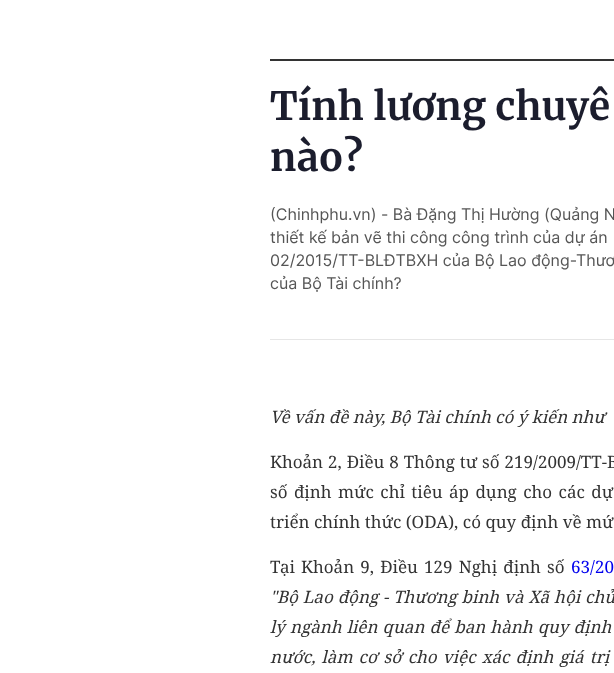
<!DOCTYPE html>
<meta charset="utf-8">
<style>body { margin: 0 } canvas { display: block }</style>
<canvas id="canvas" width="614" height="673"></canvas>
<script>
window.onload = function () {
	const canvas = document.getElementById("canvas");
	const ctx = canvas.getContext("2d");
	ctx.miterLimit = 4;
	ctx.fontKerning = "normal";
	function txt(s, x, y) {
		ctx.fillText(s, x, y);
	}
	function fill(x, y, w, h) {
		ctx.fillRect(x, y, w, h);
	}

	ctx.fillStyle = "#FFFFFF";
	fill(0, 0, 614, 673);
	ctx.fillStyle = "#333333";
	fill(270, 59, 344, 2);
	ctx.fillStyle = "#E6E6E6";
	fill(270, 339, 344, 1);
	ctx.font = "bold 39px Merriweather";
	ctx.fillStyle = "#1B1D2D";
	txt("Tính lương chuyê", 270, 120);
	txt("nào?", 270, 171);
	ctx.font = "16px Inter";
	ctx.fillStyle = "#555555";
	txt("(Chinhphu.vn) - Bà Đặng Thị Hường (Quảng N", 270, 220);
	txt("thiết kế bản vẽ thi công công trình của dự án", 270, 243);
	txt("02/2015/TT-BLĐTBXH của Bộ Lao động-Thươ", 270, 266);
	txt("của Bộ Tài chính?", 270, 289);
	ctx.font = "italic 17px Noto Serif";
	ctx.fillStyle = "#333333";
	txt("Về vấn đề này, Bộ Tài chính có ý kiến như", 270, 423);
	ctx.wordSpacing = "0.5px";
	ctx.font = "17px Noto Serif";
	txt("Khoản 2, Điều 8 Thông tư số 219/2009/TT-B", 270, 468);
	ctx.wordSpacing = "2px";
	txt("số định mức chỉ tiêu áp dụng cho các dự", 270, 498);
	ctx.wordSpacing = "0px";
	txt("triển chính thức (ODA), có quy định về mứ", 270, 528);
	ctx.wordSpacing = "1.75px";
	txt("Tại Khoản 9, Điều 129 Nghị định số", 270, 573);
	ctx.wordSpacing = "0px";
	ctx.fillStyle = "#0000EE";
	txt("63/20", 571, 573);
	ctx.wordSpacing = "0.5px";
	ctx.font = "italic 17px Noto Serif";
	ctx.fillStyle = "#333333";
	txt("\"Bộ Lao động - Thương binh và Xã hội chủ", 270, 603);
	ctx.wordSpacing = "0.75px";
	txt("lý ngành liên quan để ban hành quy định", 270, 633);
	ctx.wordSpacing = "1.75px";
	txt("nước, làm cơ sở cho việc xác định giá trị", 270, 663);
};
</script>
